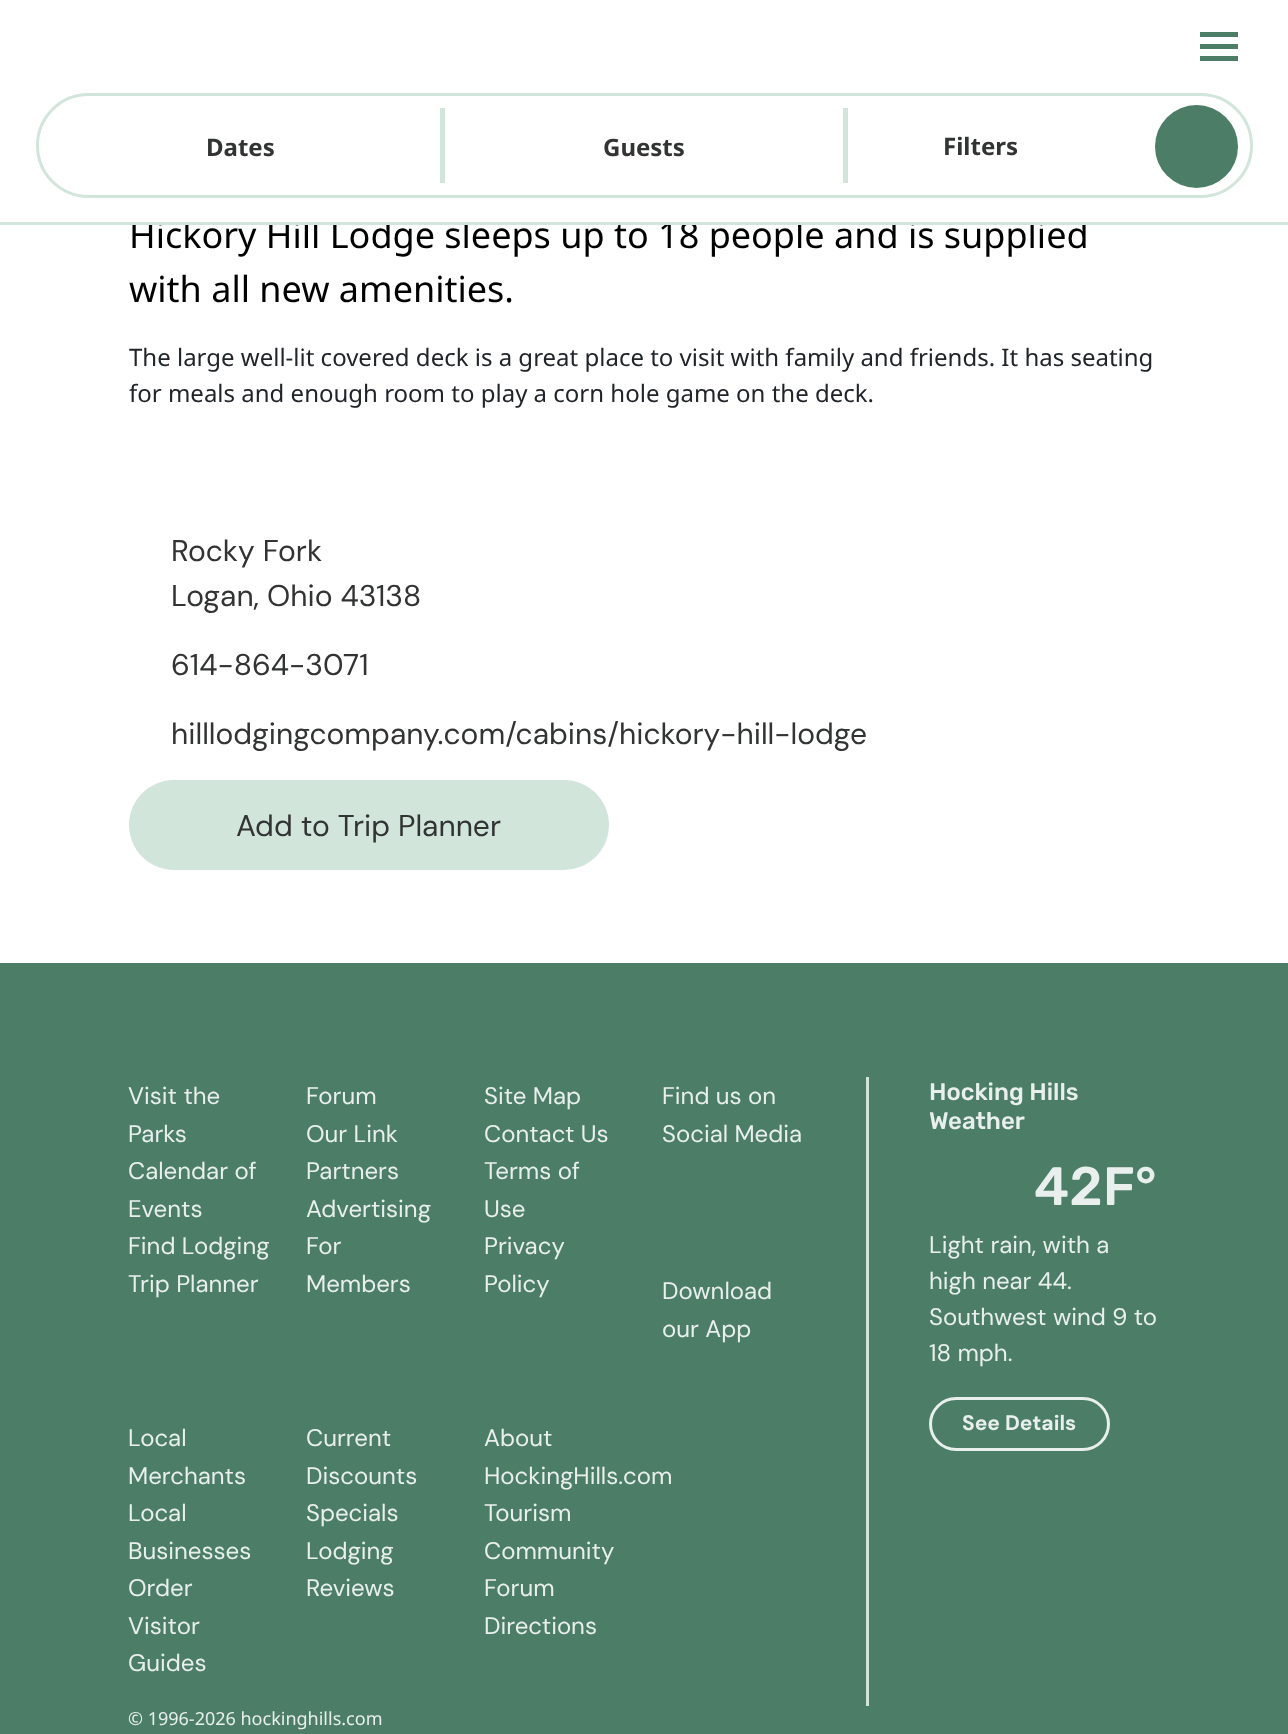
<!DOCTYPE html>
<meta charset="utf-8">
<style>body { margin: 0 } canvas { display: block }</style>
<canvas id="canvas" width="1288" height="1734"></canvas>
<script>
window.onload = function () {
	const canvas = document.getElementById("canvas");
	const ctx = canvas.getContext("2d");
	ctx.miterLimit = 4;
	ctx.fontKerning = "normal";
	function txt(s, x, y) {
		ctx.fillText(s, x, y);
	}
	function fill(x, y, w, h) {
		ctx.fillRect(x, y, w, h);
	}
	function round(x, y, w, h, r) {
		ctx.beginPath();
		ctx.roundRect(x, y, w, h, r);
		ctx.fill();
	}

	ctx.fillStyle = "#FFFFFF";
	fill(0, 0, 1288, 1734);
	ctx.fillStyle = "#4B7D67";
	fill(1200, 32, 38, 5);
	fill(1200, 44, 38, 5);
	fill(1200, 56, 38, 5);
	ctx.beginPath();
	ctx.roundRect(37.5, 94.5, 1214, 102, 51);
	ctx.strokeStyle = "#D1E5DB";
	ctx.lineWidth = 3;
	ctx.stroke();
	ctx.fillStyle = "#D1E5DB";
	fill(440, 108, 5, 75);
	fill(843, 108, 5, 75);
	ctx.fillStyle = "#4B7D67";
	ctx.beginPath();
	ctx.arc(1196.5, 146.5, 41.5, 0, Math.PI * 2);
	ctx.fill();
	ctx.fillStyle = "#D1E5DB";
	round(129, 780, 480, 90, 45);
	ctx.fillStyle = "#4B7D67";
	fill(0, 963, 1288, 771);
	ctx.fillStyle = "#D1E5DB";
	fill(866, 1077, 3, 629);
	ctx.beginPath();
	ctx.roundRect(930.5, 1398.5, 178, 51, 25.5);
	ctx.strokeStyle = "#E8EFEC";
	ctx.stroke();
	ctx.font = "bold 24px Noto Sans";
	ctx.fillStyle = "#323333";
	txt("Dates", 206, 156);
	txt("Guests", 603, 156);
	txt("Filters", 943, 155);
	ctx.font = "36px Noto Sans";
	ctx.fillStyle = "#000000";
	txt("Hickory Hill Lodge sleeps up to 18 people and is supplied", 129, 248);
	ctx.fillStyle = "#D1E5DB";
	fill(0, 222, 1288, 3);
	ctx.fillStyle = "#FFFFFF";
	fill(158, 220, 928, 2);
	ctx.fillStyle = "#000000";
	txt("with all new amenities.", 129, 302);
	ctx.font = "24px Noto Sans";
	ctx.fillStyle = "#212529";
	txt("The large well-lit covered deck is a great place to visit with family and friends. It has seating", 129, 366);
	txt("for meals and enough room to play a corn hole game on the deck.", 129, 402);
	ctx.font = "30px DM Sans";
	ctx.fillStyle = "#323333";
	txt("Rocky Fork", 171, 561);
	txt("Logan, Ohio 43138", 171, 606);
	txt("614-864-3071", 171, 675);
	txt("hilllodgingcompany.com/cabins/hickory-hill-lodge", 171, 744);
	txt("Add to Trip Planner", 236, 836);
	ctx.font = "24px DM Sans";
	ctx.fillStyle = "#E8EFEC";
	txt("Visit the", 128, 1104);
	txt("Parks", 128, 1142);
	txt("Calendar of", 128, 1179);
	txt("Events", 128, 1217);
	txt("Find Lodging", 128, 1254);
	txt("Trip Planner", 128, 1292);
	txt("Forum", 306, 1104);
	txt("Our Link", 306, 1142);
	txt("Partners", 306, 1179);
	txt("Advertising", 306, 1217);
	txt("For", 306, 1254);
	txt("Members", 306, 1292);
	txt("Site Map", 484, 1104);
	txt("Contact Us", 484, 1142);
	txt("Terms of", 484, 1179);
	txt("Use", 484, 1217);
	txt("Privacy", 484, 1254);
	txt("Policy", 484, 1292);
	txt("Find us on", 662, 1104);
	txt("Social Media", 662, 1142);
	txt("Download", 662, 1299);
	txt("our App", 662, 1337);
	txt("Local", 128, 1446);
	txt("Merchants", 128, 1484);
	txt("Local", 128, 1521);
	txt("Businesses", 128, 1559);
	txt("Order", 128, 1596);
	txt("Visitor", 128, 1634);
	txt("Guides", 128, 1671);
	txt("Current", 306, 1446);
	txt("Discounts", 306, 1484);
	txt("Specials", 306, 1521);
	txt("Lodging", 306, 1559);
	txt("Reviews", 306, 1596);
	txt("About", 484, 1446);
	txt("HockingHills.com", 484, 1484);
	txt("Tourism", 484, 1521);
	txt("Community", 484, 1559);
	txt("Forum", 484, 1596);
	txt("Directions", 484, 1634);
	ctx.font = "500 24px Rubik";
	txt("Hocking Hills", 929, 1100);
	txt("Weather", 929, 1129);
	ctx.font = "500 54px Rubik";
	txt("42F°", 1034, 1205);
	ctx.font = "24px DM Sans";
	txt("Light rain, with a", 929, 1253);
	txt("high near 44.", 929, 1289);
	txt("Southwest wind 9 to", 929, 1325);
	txt("18 mph.", 929, 1361);
	ctx.font = "bold 21px DM Sans";
	txt("See Details", 962, 1430);
	ctx.font = "18px Noto Sans";
	txt("© 1996-2026 hockinghills.com", 128, 1725);
};
</script>
